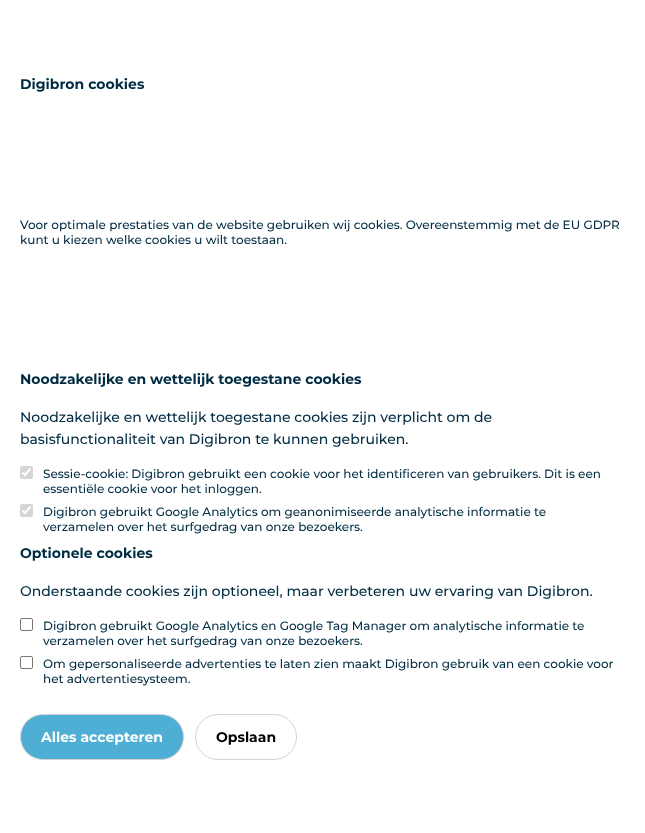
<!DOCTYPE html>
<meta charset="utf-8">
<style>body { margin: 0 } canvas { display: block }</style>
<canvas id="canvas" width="645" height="833"></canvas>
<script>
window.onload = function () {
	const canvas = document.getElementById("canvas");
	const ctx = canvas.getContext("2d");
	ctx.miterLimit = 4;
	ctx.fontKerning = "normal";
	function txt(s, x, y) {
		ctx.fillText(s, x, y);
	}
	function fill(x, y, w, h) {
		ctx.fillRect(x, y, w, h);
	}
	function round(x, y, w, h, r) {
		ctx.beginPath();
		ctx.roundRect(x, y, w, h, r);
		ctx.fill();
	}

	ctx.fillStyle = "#FFFFFF";
	fill(0, 0, 645, 833);
	ctx.fillStyle = "#D6D6D6";
	round(20, 466, 13, 13, 2);
	ctx.beginPath();
	ctx.moveTo(22.5, 472.5);
	ctx.lineTo(25, 475);
	ctx.lineTo(30.5, 468.5);
	ctx.strokeStyle = "#FFFFFF";
	ctx.lineWidth = 2.1;
	ctx.stroke();
	round(20, 504, 13, 13, 2);
	ctx.beginPath();
	ctx.moveTo(22.5, 510.5);
	ctx.lineTo(25, 513);
	ctx.lineTo(30.5, 506.5);
	ctx.stroke();
	ctx.beginPath();
	ctx.roundRect(20.5, 618.5, 12, 12, 1.5);
	ctx.strokeStyle = "#767676";
	ctx.lineWidth = 1;
	ctx.stroke();
	ctx.beginPath();
	ctx.roundRect(20.5, 656.5, 12, 12, 1.5);
	ctx.stroke();
	ctx.fillStyle = "#4FAED3";
	ctx.beginPath();
	ctx.roundRect(20.5, 714.5, 163, 45, 22.5);
	ctx.fill();
	ctx.strokeStyle = "#D3D3D3";
	ctx.stroke();
	ctx.beginPath();
	ctx.roundRect(195.5, 714.5, 101, 45, 22.5);
	ctx.stroke();
	ctx.font = "bold 14px Montserrat";
	ctx.fillStyle = "#002C43";
	txt("Digibron cookies", 20, 89);
	ctx.font = "500 12px Montserrat";
	txt("Voor optimale prestaties van de website gebruiken wij cookies. Overeenstemmig met de EU GDPR", 20, 229);
	txt("kunt u kiezen welke cookies u wilt toestaan.", 20, 244);
	ctx.font = "bold 14px Montserrat";
	txt("Noodzakelijke en wettelijk toegestane cookies", 20, 384);
	ctx.font = "500 14px Montserrat";
	txt("Noodzakelijke en wettelijk toegestane cookies zijn verplicht om de", 20, 422);
	txt("basisfunctionaliteit van Digibron te kunnen gebruiken.", 20, 444);
	ctx.font = "500 12px Montserrat";
	txt("Sessie-cookie: Digibron gebruikt een cookie voor het identificeren van gebruikers. Dit is een", 43, 478);
	txt("essentiële cookie voor het inloggen.", 43, 493);
	txt("Digibron gebruikt Google Analytics om geanonimiseerde analytische informatie te", 43, 516);
	txt("verzamelen over het surfgedrag van onze bezoekers.", 43, 531);
	ctx.font = "bold 14px Montserrat";
	txt("Optionele cookies", 20, 558);
	ctx.font = "500 14px Montserrat";
	txt("Onderstaande cookies zijn optioneel, maar verbeteren uw ervaring van Digibron.", 20, 596);
	ctx.font = "500 12px Montserrat";
	txt("Digibron gebruikt Google Analytics en Google Tag Manager om analytische informatie te", 43, 630);
	txt("verzamelen over het surfgedrag van onze bezoekers.", 43, 645);
	txt("Om gepersonaliseerde advertenties te laten zien maakt Digibron gebruik van een cookie voor", 43, 668);
	txt("het advertentiesysteem.", 43, 683);
	ctx.font = "bold 14px Montserrat";
	ctx.fillStyle = "#FFFFFF";
	txt("Alles accepteren", 41, 742);
	ctx.fillStyle = "#000000";
	txt("Opslaan", 216, 742);
};
</script>
